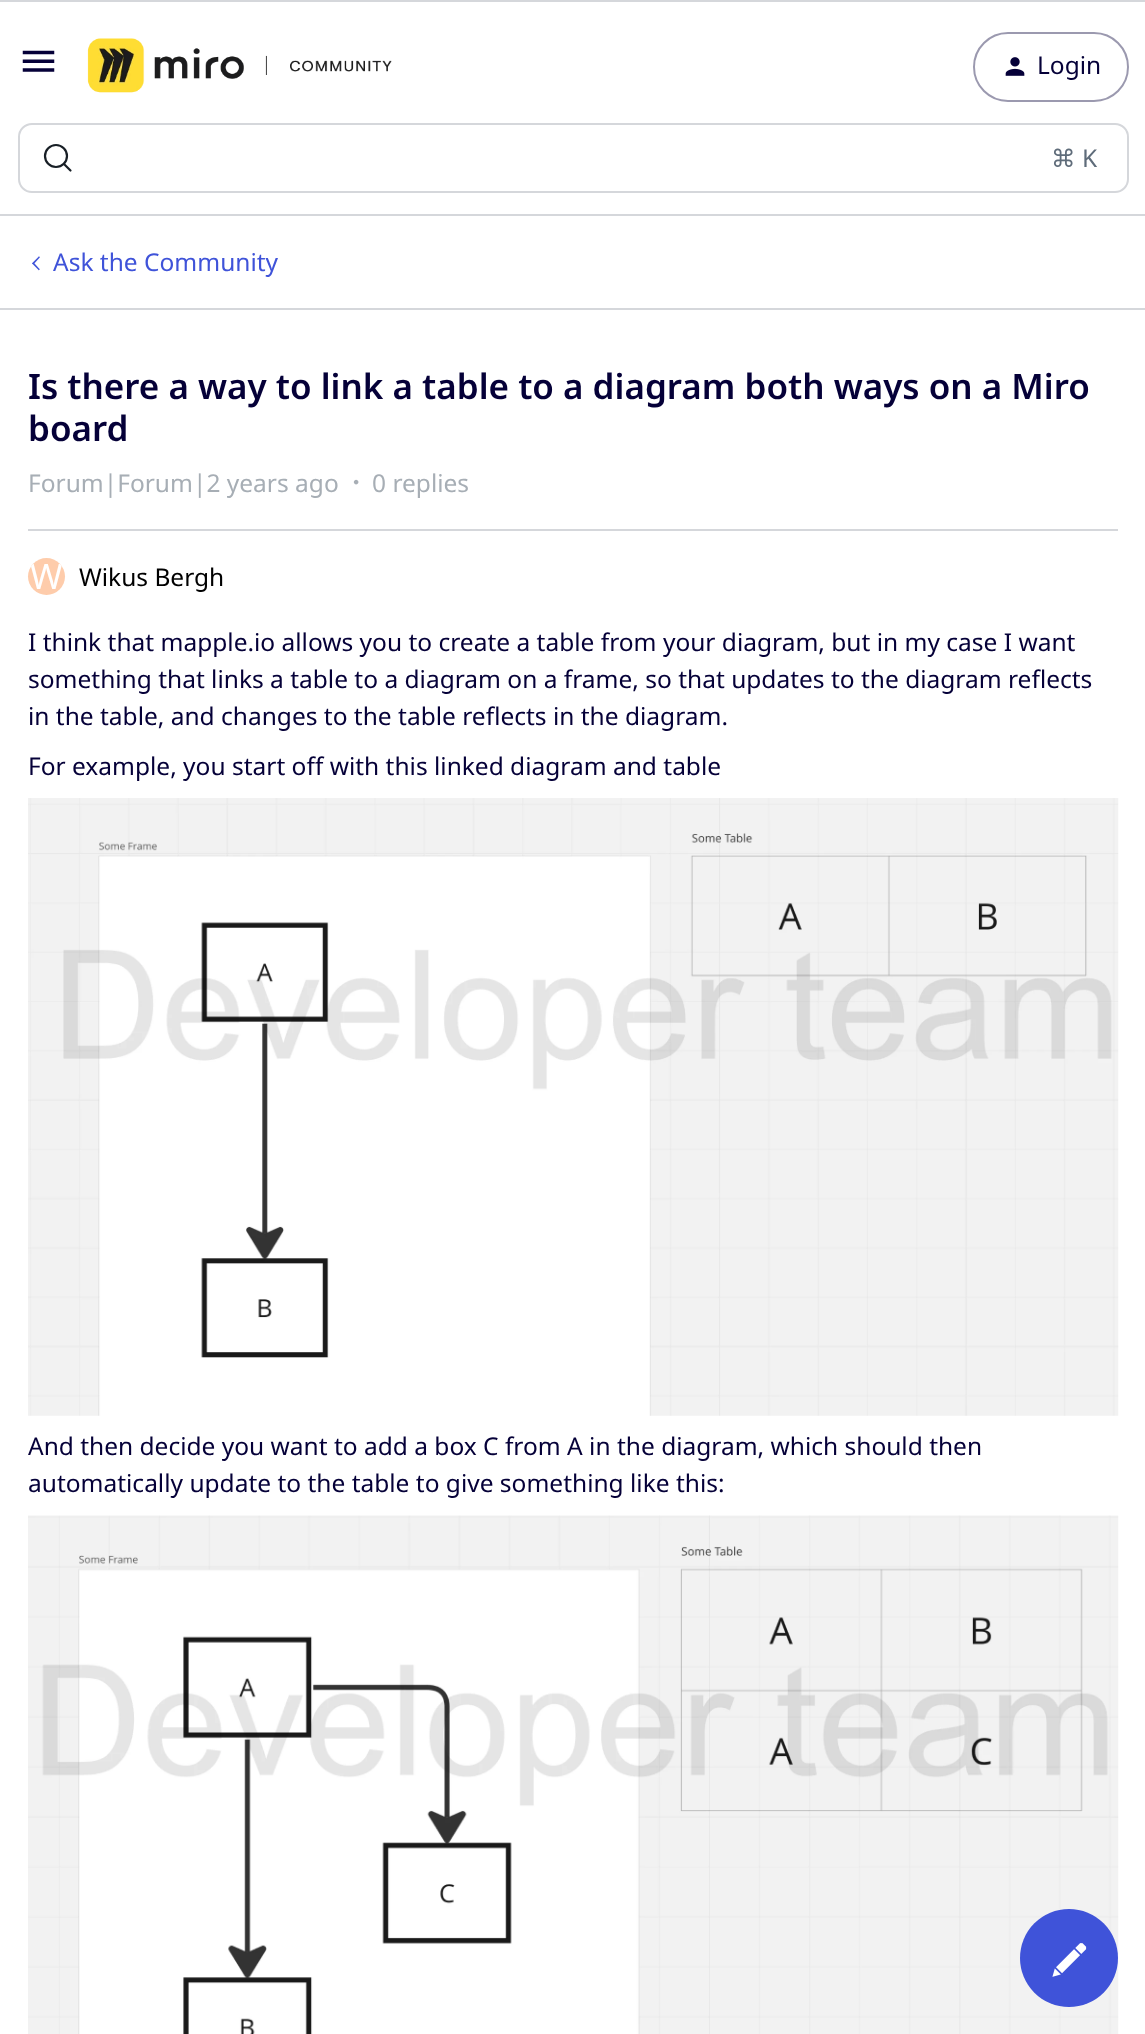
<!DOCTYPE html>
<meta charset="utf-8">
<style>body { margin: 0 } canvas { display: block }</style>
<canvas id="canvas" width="1145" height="2034"></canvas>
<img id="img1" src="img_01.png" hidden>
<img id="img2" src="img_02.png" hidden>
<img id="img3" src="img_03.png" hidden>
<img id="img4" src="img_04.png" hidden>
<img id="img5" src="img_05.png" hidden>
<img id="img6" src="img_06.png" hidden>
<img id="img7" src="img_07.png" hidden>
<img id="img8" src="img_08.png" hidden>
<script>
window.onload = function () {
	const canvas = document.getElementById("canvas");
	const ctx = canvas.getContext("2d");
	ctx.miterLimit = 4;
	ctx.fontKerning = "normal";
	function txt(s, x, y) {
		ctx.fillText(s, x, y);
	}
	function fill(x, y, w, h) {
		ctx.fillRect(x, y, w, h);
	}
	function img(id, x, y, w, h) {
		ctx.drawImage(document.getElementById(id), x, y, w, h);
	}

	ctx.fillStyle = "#FFFFFF";
	fill(0, 0, 1145, 2034);
	ctx.fillStyle = "#D5D7DB";
	fill(0, 0, 1145, 2);
	fill(0, 214, 1145, 2);
	img("img1", 22, 50, 33, 22);
	img("img2", 87, 38, 305, 55);
	ctx.beginPath();
	ctx.roundRect(974, 33, 154, 68, 34);
	ctx.strokeStyle = "#9B99AF";
	ctx.lineWidth = 2;
	ctx.stroke();
	img("img3", 1005, 57, 20, 19);
	ctx.beginPath();
	ctx.roundRect(19, 124, 1109, 68, 13);
	ctx.strokeStyle = "#D5D7DB";
	ctx.stroke();
	ctx.beginPath();
	ctx.arc(56, 156, 11, 0, Math.PI * 2);
	ctx.strokeStyle = "#181F26";
	ctx.lineWidth = 2.2;
	ctx.stroke();
	ctx.beginPath();
	ctx.moveTo(64, 164);
	ctx.lineTo(70.5, 170.5);
	ctx.lineCap = "round";
	ctx.stroke();
	img("img4", 32, 256, 8, 15);
	fill(0, 308, 1145, 2);
	img("img5", 353, 479, 6, 6);
	fill(28, 529, 1090, 2);
	ctx.fillStyle = "#FECCAB";
	ctx.beginPath();
	ctx.arc(46.5, 576.5, 18.5, 0, Math.PI * 2);
	ctx.fill();
	img("img6", 28, 798, 1091, 618);
	img("img7", 28, 1515, 1091, 519);
	ctx.fillStyle = "#3F53D9";
	ctx.beginPath();
	ctx.arc(1069, 1958, 49, 0, Math.PI * 2);
	ctx.fill();
	img("img8", 1052, 1943, 35, 34);
	ctx.font = "24.5px Noto Sans";
	ctx.fillStyle = "#050038";
	txt("Login", 1037, 74);
	ctx.font = "24.5px DejaVu Sans";
	ctx.fillStyle = "#5F6C7A";
	txt("⌘", 1051, 167);
	ctx.font = "24.5px Noto Sans";
	txt("K", 1082, 167);
	ctx.fillStyle = "#3F53D9";
	txt("Ask the Community", 53, 271);
	ctx.font = "600 35px Noto Sans";
	ctx.fillStyle = "#050038";
	txt("Is there a way to link a table to a diagram both ways on a Miro", 28, 399);
	txt("board", 28, 441);
	ctx.font = "24.5px Noto Sans";
	ctx.fillStyle = "#A7AEB5";
	txt("Forum|Forum|2 years ago", 28, 492);
	txt("0 replies", 372, 492);
	ctx.save();
	ctx.beginPath();
	ctx.roundRect(28, 558, 37, 37, 18.5);
	ctx.clip();
	ctx.font = "35px Noto Sans";
	ctx.fillStyle = "#FFFFFF";
	txt("W", 30, 589);
	ctx.restore();
	ctx.fillStyle = "#000000";
	txt("Wikus Bergh", 79, 586);
	ctx.fillStyle = "#050038";
	txt("I think that mapple.io allows you to create a table from your diagram, but in my case I want", 28, 651);
	txt("something that links a table to a diagram on a frame, so that updates to the diagram reflects", 28, 688);
	txt("in the table, and changes to the table reflects in the diagram.", 28, 725);
	txt("For example, you start off with this linked diagram and table", 28, 775);
	txt("And then decide you want to add a box C from A in the diagram, which should then", 28, 1455);
	txt("automatically update to the table to give something like this:", 28, 1492);
};
</script>
